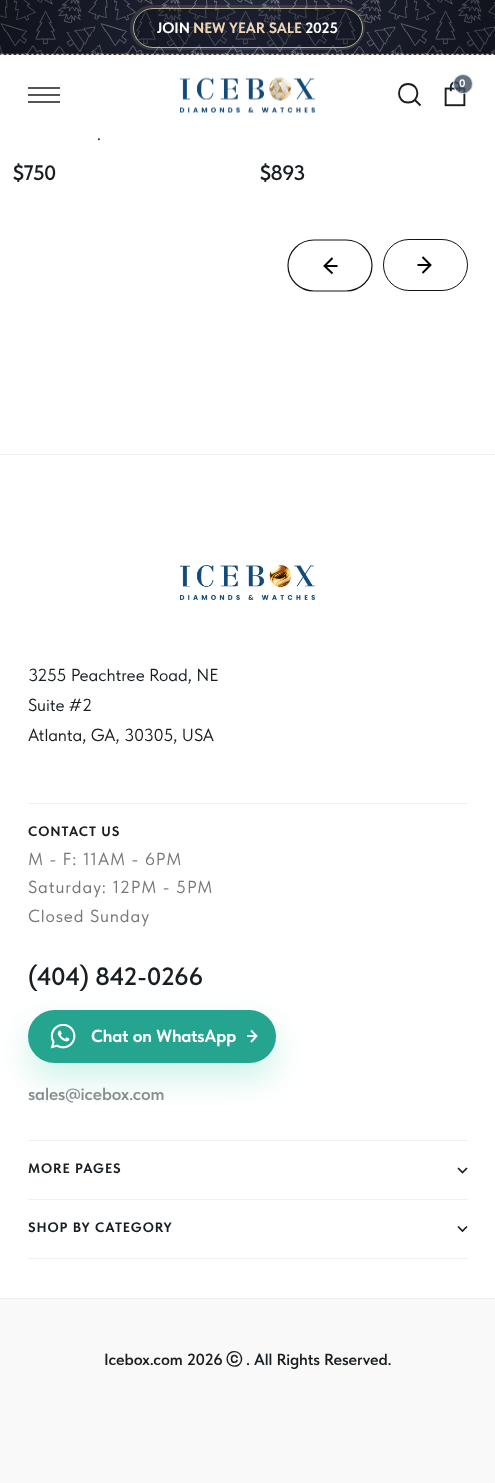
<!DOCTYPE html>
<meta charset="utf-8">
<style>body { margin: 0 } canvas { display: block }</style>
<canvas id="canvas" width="495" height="1483"></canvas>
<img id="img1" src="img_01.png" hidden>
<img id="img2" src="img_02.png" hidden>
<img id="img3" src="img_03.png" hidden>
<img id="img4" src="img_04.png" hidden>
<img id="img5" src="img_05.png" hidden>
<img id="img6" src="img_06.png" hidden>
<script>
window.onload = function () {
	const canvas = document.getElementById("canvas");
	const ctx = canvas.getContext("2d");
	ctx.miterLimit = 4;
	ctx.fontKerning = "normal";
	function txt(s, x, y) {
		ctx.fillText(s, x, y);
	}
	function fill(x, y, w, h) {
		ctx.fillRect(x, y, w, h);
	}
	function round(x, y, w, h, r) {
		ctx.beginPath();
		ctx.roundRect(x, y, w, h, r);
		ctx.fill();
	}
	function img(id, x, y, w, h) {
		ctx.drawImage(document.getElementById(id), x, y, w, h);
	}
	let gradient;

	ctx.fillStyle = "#FFFFFF";
	fill(0, 0, 495, 1483);
	gradient = ctx.createRadialGradient(248, 28, 0, 248, 28, 249);
	gradient.addColorStop(0, "#24293D");
	gradient.addColorStop(1, "#181B29");
	ctx.fillStyle = gradient;
	fill(0, 0, 495, 55);
	img("img1", 0, 0, 495, 55);
	gradient = ctx.createRadialGradient(248, 28, 0, 248, 28, 249);
	gradient.addColorStop(0, "rgba(6, 7, 10, 0)");
	gradient.addColorStop(1, "rgba(6, 7, 10, 0.4)");
	ctx.fillStyle = gradient;
	fill(0, 0, 495, 55);
	ctx.beginPath();
	ctx.roundRect(131.5, 6.5, 232, 42, 21);
	ctx.strokeStyle = "rgba(243, 222, 183, 0.13)";
	ctx.lineWidth = 3;
	ctx.stroke();
	ctx.fillStyle = "rgba(10, 14, 21, 0.36)";
	ctx.beginPath();
	ctx.roundRect(133.5, 8.5, 229, 39, 19.5);
	ctx.fill();
	ctx.strokeStyle = "#BBAF99";
	ctx.lineWidth = 1;
	ctx.stroke();
	img("img2", 0, 53, 495, 2);
	img("img3", 180, 77, 135, 36);
	ctx.beginPath();
	ctx.moveTo(408, 102.5);
	ctx.bezierCurveTo(420.5, 102.5, 420.5, 84, 408, 84);
	ctx.bezierCurveTo(396, 84, 396, 102.5, 408, 102.5);
	ctx.closePath();
	ctx.moveTo(420.5, 105.5);
	ctx.lineTo(415, 100);
	ctx.strokeStyle = "#181E22";
	ctx.lineWidth = 1.9;
	ctx.stroke();
	img("img4", 444, 81, 22, 26);
	ctx.fillStyle = "rgba(64, 78, 96, 0.8)";
	ctx.beginPath();
	ctx.arc(463, 84, 9.5, 0, Math.PI * 2);
	ctx.fill();
	ctx.strokeStyle = "#DDE0E7";
	ctx.lineWidth = 1;
	ctx.stroke();
	ctx.fillStyle = "#525659";
	fill(28, 94, 32, 2);
	fill(28, 87, 32, 2);
	fill(28, 101, 32, 2);
	ctx.beginPath();
	ctx.moveTo(337.5, 266);
	ctx.lineTo(324.5, 266);
	ctx.moveTo(332.5, 273.5);
	ctx.lineTo(324.5, 266);
	ctx.lineTo(332.5, 258);
	ctx.strokeStyle = "#000000";
	ctx.lineWidth = 1.9;
	ctx.stroke();
	ctx.beginPath();
	ctx.moveTo(346, 291);
	ctx.lineTo(314, 291);
	ctx.bezierCurveTo(299.5, 291, 288, 279.5, 288, 265.5);
	ctx.bezierCurveTo(288, 251.5, 299.5, 240, 314, 240);
	ctx.lineTo(346, 240);
	ctx.bezierCurveTo(360.5, 240, 372, 251.5, 372, 265.5);
	ctx.bezierCurveTo(372, 279.5, 360.5, 291, 346, 291);
	ctx.closePath();
	ctx.strokeStyle = "#131317";
	ctx.lineWidth = 1.2;
	ctx.stroke();
	ctx.beginPath();
	ctx.moveTo(417.5, 265);
	ctx.lineTo(430.5, 265);
	ctx.moveTo(422.5, 257);
	ctx.lineTo(430.5, 265);
	ctx.lineTo(422.5, 273);
	ctx.strokeStyle = "#000000";
	ctx.lineWidth = 1.9;
	ctx.stroke();
	ctx.beginPath();
	ctx.roundRect(383.5, 239.5, 84, 51, 25.5);
	ctx.strokeStyle = "#131317";
	ctx.lineWidth = 1;
	ctx.stroke();
	ctx.fillStyle = "#F0F0F0";
	fill(0, 454, 495, 1);
	img("img5", 180, 565, 135, 35);
	fill(28, 803, 440, 1);
	ctx.fillStyle = "rgba(6, 192, 142, 0.2)";
	ctx.filter = "blur(16px)";
	ctx.beginPath();
	ctx.roundRect(28, 1025, 248, 53, 26.5);
	ctx.fill();
	ctx.filter = "none";
	ctx.fillStyle = "#25A590";
	round(28, 1010, 248, 53, 26.5);
	img("img6", 50, 1024, 26, 25);
	ctx.fillStyle = "#F4FBF9";
	fill(247, 1035, 10, 2);
	ctx.beginPath();
	ctx.moveTo(251, 1030.5);
	ctx.lineTo(256.5, 1036);
	ctx.lineTo(251, 1042);
	ctx.strokeStyle = "#FFFFFF";
	ctx.lineWidth = 1.9;
	ctx.stroke();
	ctx.fillStyle = "#F0F0F0";
	fill(28, 1140, 440, 1);
	fill(28, 1199, 440, 1);
	ctx.beginPath();
	ctx.moveTo(458, 1168);
	ctx.lineTo(462.5, 1172.5);
	ctx.lineTo(467, 1168);
	ctx.strokeStyle = "#181E22";
	ctx.lineWidth = 1.7;
	ctx.stroke();
	fill(28, 1258, 440, 1);
	ctx.beginPath();
	ctx.moveTo(458, 1226.5);
	ctx.lineTo(462.5, 1231);
	ctx.lineTo(467, 1226.5);
	ctx.stroke();
	ctx.fillStyle = "#F9F9F9";
	fill(0, 1299, 495, 184);
	ctx.fillStyle = "#F0F0F0";
	fill(0, 1298, 495, 1);
	ctx.letterSpacing = "-0.1px";
	ctx.font = "italic bold 15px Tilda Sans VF";
	ctx.fillStyle = "#FFFFFF";
	txt("JOIN", 157, 33);
	ctx.fillStyle = "#EED5B4";
	txt("NEW YEAR SALE", 193, 33);
	ctx.fillStyle = "#FFFFFF";
	txt("2025", 305, 33);
	ctx.font = "italic bold 11px Tilda Sans VF";
	txt("0", 459, 87);
	ctx.font = "italic 16.25px Tilda Sans VF";
	ctx.fillStyle = "#181E22";
	txt(".", 97, 140);
	ctx.letterSpacing = "-0.5px";
	ctx.font = "italic 600 21px Tilda Sans VF";
	txt("$750", 13, 180);
	txt("$893", 260, 180);
	ctx.letterSpacing = "-0.1px";
	ctx.font = "italic 17.5px 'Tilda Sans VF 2'";
	txt("3255 Peachtree Road, NE", 28, 681);
	txt("Suite #2", 28, 711);
	txt("Atlanta, GA, 30305, USA", 28, 741);
	ctx.letterSpacing = "0.9px";
	ctx.font = "italic bold 13.75px Tilda Sans VF";
	txt("CONTACT US", 28, 836);
	ctx.font = "italic 17.5px 'Tilda Sans VF 2'";
	ctx.fillStyle = "#74787A";
	txt("M - F: 11AM - 6PM", 28, 865);
	txt("Saturday: 12PM - 5PM", 28, 893);
	txt("Closed Sunday", 28, 922);
	ctx.letterSpacing = "-0.1px";
	ctx.font = "italic 600 25px Tilda Sans VF";
	ctx.fillStyle = "#181E22";
	txt("(404) 842-0266", 28, 985);
	ctx.font = "italic bold 17.5px Tilda Sans VF";
	ctx.fillStyle = "#FFFFFF";
	txt("Chat on WhatsApp", 91, 1042);
	ctx.font = "italic 600 17.5px Tilda Sans VF";
	ctx.fillStyle = "#888E8F";
	txt("sales@icebox.com", 28, 1100);
	ctx.letterSpacing = "0.9px";
	ctx.font = "italic bold 13.75px Tilda Sans VF";
	ctx.fillStyle = "#181E22";
	txt("MORE PAGES", 28, 1173);
	txt("SHOP BY CATEGORY", 28, 1232);
	ctx.letterSpacing = "-0.1px";
	ctx.font = "italic 600 16.25px Tilda Sans VF";
	txt("Icebox.com 2026", 104, 1365);
	ctx.font = "bold 16.25px WenQuanYi Zen Hei";
	txt("ⓒ", 226, 1365);
	ctx.font = "italic 600 16.25px Tilda Sans VF";
	txt(". All Rights Reserved.", 246, 1365);
};
</script>
